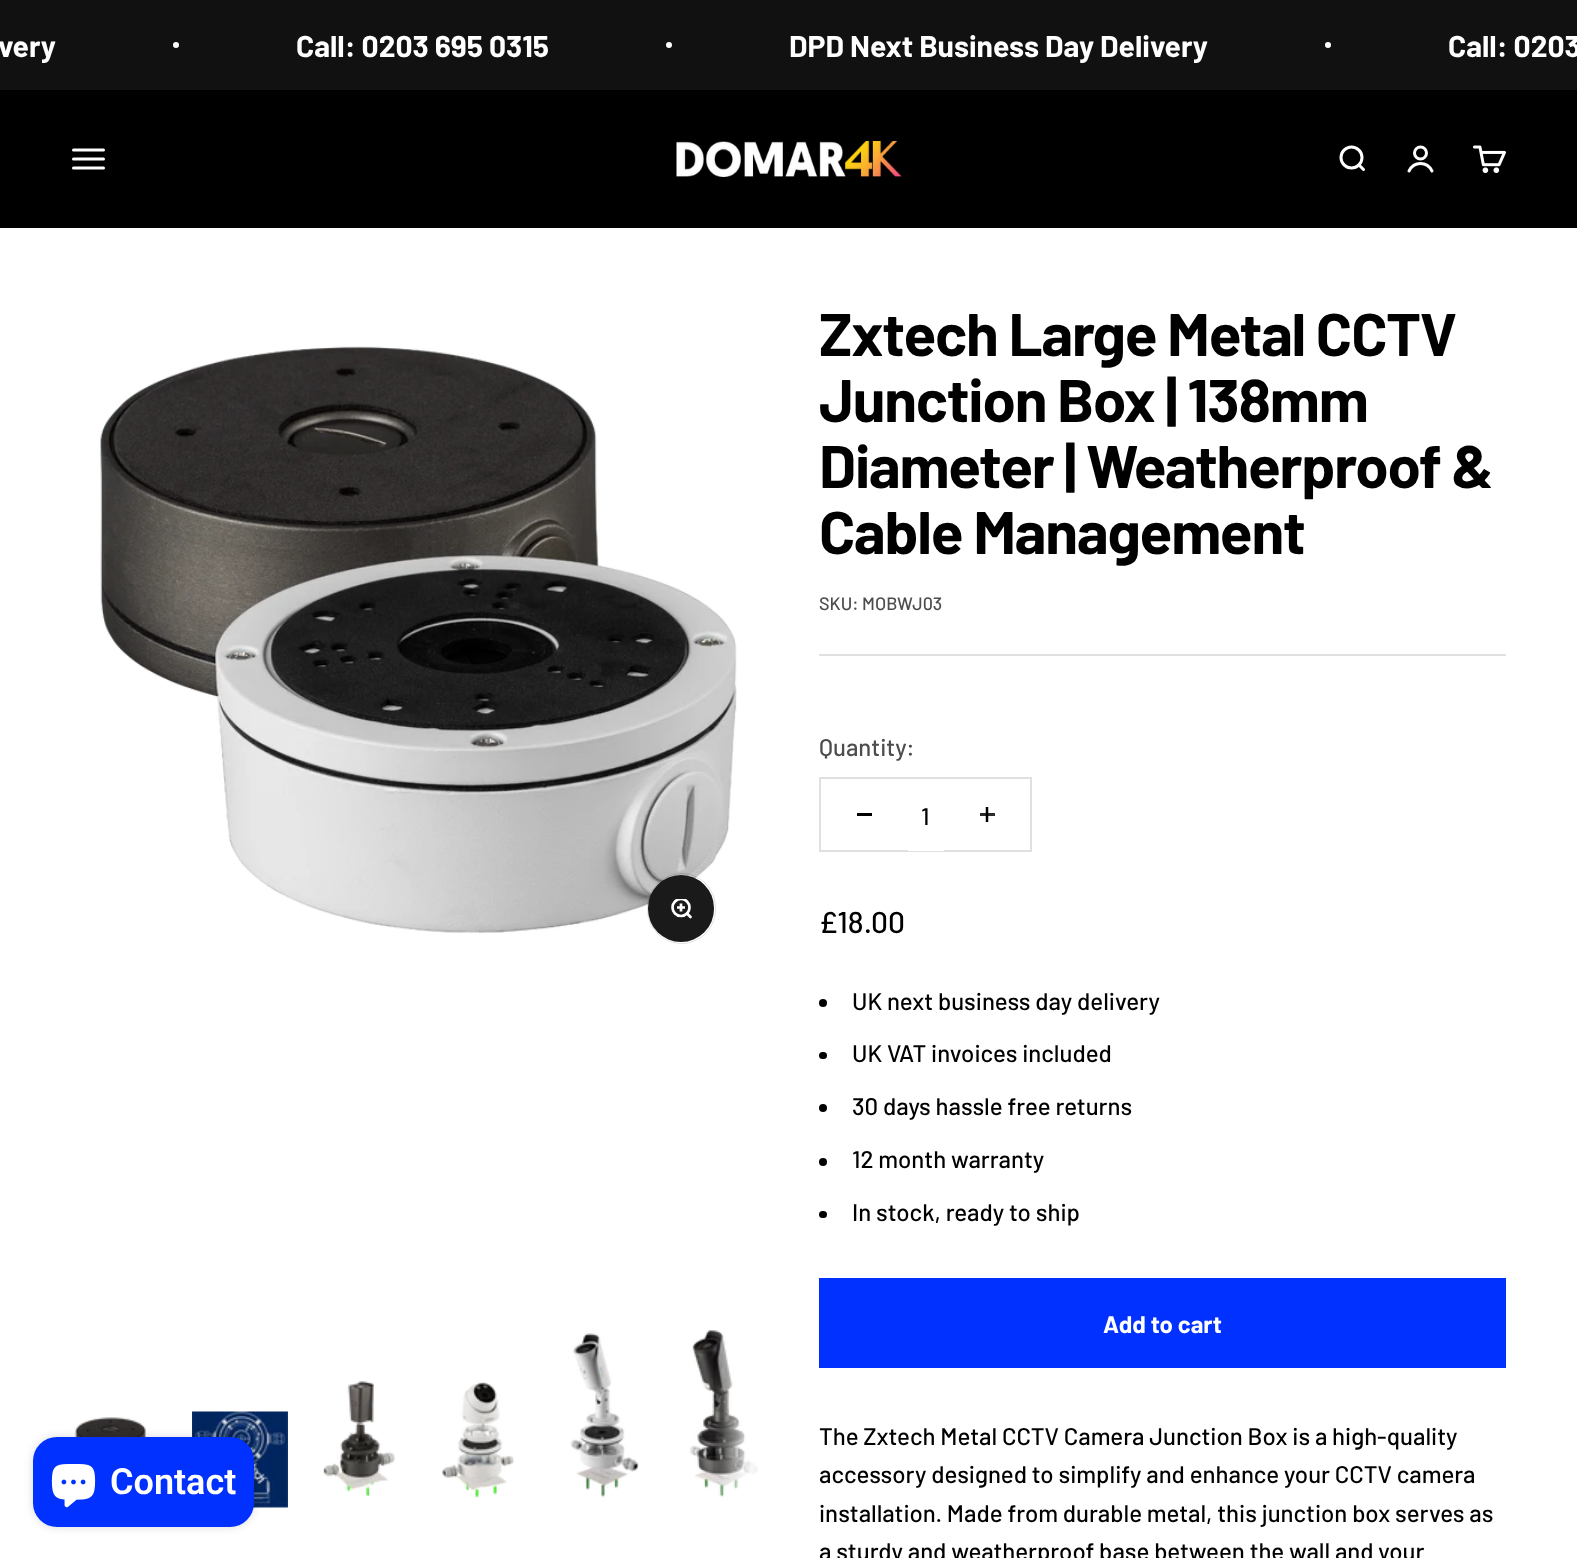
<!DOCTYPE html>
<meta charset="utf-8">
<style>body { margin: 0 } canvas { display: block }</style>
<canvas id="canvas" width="1577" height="1558"></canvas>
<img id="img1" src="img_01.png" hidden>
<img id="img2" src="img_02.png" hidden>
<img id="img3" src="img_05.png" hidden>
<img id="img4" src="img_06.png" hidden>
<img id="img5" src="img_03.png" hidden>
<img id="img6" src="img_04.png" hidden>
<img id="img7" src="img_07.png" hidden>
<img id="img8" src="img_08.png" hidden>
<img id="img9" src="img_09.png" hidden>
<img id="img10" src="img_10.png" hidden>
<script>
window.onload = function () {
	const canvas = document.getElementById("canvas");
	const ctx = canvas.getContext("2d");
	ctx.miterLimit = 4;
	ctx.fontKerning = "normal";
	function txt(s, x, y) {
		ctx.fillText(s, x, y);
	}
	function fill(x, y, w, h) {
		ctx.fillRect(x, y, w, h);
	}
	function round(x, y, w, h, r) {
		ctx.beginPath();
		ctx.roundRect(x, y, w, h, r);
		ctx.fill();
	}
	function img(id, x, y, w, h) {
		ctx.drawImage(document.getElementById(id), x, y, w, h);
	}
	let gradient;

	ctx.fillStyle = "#111111";
	fill(0, 0, 1577, 1558);
	ctx.fillStyle = "#FFFFFF";
	ctx.beginPath();
	ctx.arc(176, 45, 3, 0, Math.PI * 2);
	ctx.fill();
	ctx.beginPath();
	ctx.arc(669, 45, 3, 0, Math.PI * 2);
	ctx.fill();
	ctx.beginPath();
	ctx.arc(1328, 45, 3, 0, Math.PI * 2);
	ctx.fill();
	ctx.fillStyle = "#000000";
	fill(0, 90, 1577, 138);
	ctx.beginPath();
	ctx.moveTo(73.5, 150);
	ctx.lineTo(103.5, 150);
	ctx.moveTo(73.5, 159);
	ctx.lineTo(103.5, 159);
	ctx.moveTo(73.5, 168);
	ctx.lineTo(103.5, 168);
	ctx.strokeStyle = "#FFFFFF";
	ctx.lineWidth = 3;
	ctx.lineCap = "round";
	ctx.stroke();
	img("img1", 676, 141, 226, 36);
	ctx.beginPath();
	ctx.arc(1351.5, 157.5, 10.5, 0, Math.PI * 2);
	ctx.stroke();
	ctx.beginPath();
	ctx.moveTo(1359, 165);
	ctx.lineTo(1363.5, 169.5);
	ctx.lineJoin = "round";
	ctx.stroke();
	ctx.beginPath();
	ctx.arc(1420.5, 153, 6, 0, Math.PI * 2);
	ctx.stroke();
	ctx.beginPath();
	ctx.moveTo(1409, 171);
	ctx.bezierCurveTo(1414, 161, 1427, 161, 1432, 171);
	ctx.lineJoin = "miter";
	ctx.stroke();
	img("img2", 1473, 145, 33, 29);
	ctx.fillStyle = "#FFFFFF";
	fill(0, 228, 1577, 1330);
	img("img3", 74, 1417, 72, 20);
	img("img4", 192, 1411, 96, 97);
	ctx.fillStyle = "rgba(0, 0, 0, 0.15)";
	ctx.filter = "blur(4px)";
	ctx.beginPath();
	ctx.roundRect(33, 1437, 221, 90, 24);
	ctx.fill();
	ctx.filter = "none";
	ctx.fillStyle = "#0031FF";
	round(33, 1437, 221, 90, 24);
	img("img5", 51, 1464, 45, 44);
	img("img6", 100, 346, 637, 587);
	ctx.beginPath();
	ctx.roundRect(647.5, 873.5, 68, 70, 34);
	ctx.strokeStyle = "rgba(0, 0, 0, 0.12)";
	ctx.lineWidth = 1;
	ctx.stroke();
	ctx.fillStyle = "#1A1A1A";
	round(648, 875, 66, 67, 33);
	ctx.save();
	ctx.beginPath();
	ctx.rect(671, 899, 21, 19);
	ctx.clip();
	ctx.beginPath();
	ctx.arc(681, 907.5, 8.5, 0, Math.PI * 2);
	ctx.strokeStyle = "#FFFFFF";
	ctx.lineWidth = 2.7;
	ctx.stroke();
	ctx.restore();
	ctx.beginPath();
	ctx.moveTo(687, 913.5);
	ctx.lineTo(690.5, 917);
	ctx.strokeStyle = "#FFFFFF";
	ctx.lineWidth = 2.7;
	ctx.lineJoin = "round";
	ctx.stroke();
	ctx.beginPath();
	ctx.moveTo(681, 903.5);
	ctx.lineTo(681, 911.5);
	ctx.moveTo(677, 907.5);
	ctx.lineTo(685, 907.5);
	ctx.lineCap = "butt";
	ctx.lineJoin = "miter";
	ctx.stroke();
	img("img7", 323, 1381, 72, 116);
	img("img8", 442, 1382, 73, 116);
	img("img9", 570, 1333, 69, 165);
	img("img10", 689, 1330, 70, 168);
	gradient = ctx.createLinearGradient(759, 1270, 714, 1270);
	gradient.addColorStop(0, "#FFFFFF");
	gradient.addColorStop(1, "rgba(255, 255, 255, 0)");
	ctx.fillStyle = gradient;
	fill(715, 1331, 44, 166);
	ctx.fillStyle = "#E0E0E0";
	fill(819, 654, 687, 2);
	ctx.strokeStyle = "#E0E0E0";
	ctx.lineWidth = 2;
	ctx.strokeRect(820, 778, 211, 73);
	ctx.fillStyle = "#000000";
	fill(857, 813, 15, 3);
	ctx.fillStyle = "#FFFFFF";
	fill(908, 850, 36, 1);
	ctx.beginPath();
	ctx.moveTo(987, 807);
	ctx.lineTo(987, 822);
	ctx.strokeStyle = "#000000";
	ctx.lineWidth = 2.5;
	ctx.stroke();
	ctx.fillStyle = "rgba(0, 0, 0, 0.83)";
	fill(980, 813, 15, 3);
	ctx.fillStyle = "#000000";
	ctx.beginPath();
	ctx.arc(823, 1003, 4, 0, Math.PI * 2);
	ctx.fill();
	round(819, 1052, 8, 7, 3.5);
	ctx.beginPath();
	ctx.arc(823, 1108, 4, 0, Math.PI * 2);
	ctx.fill();
	ctx.beginPath();
	ctx.arc(823, 1162, 4, 0, Math.PI * 2);
	ctx.fill();
	round(819, 1211, 8, 7, 3.5);
	ctx.fillStyle = "#0031FF";
	fill(819, 1278, 687, 90);
	ctx.font = "bold 30px Barlow";
	ctx.fillStyle = "#FFFFFF";
	txt("very", -2, 57);
	txt("Call: 0203 695 0315", 296, 57);
	txt("DPD Next Business Day Delivery", 789, 57);
	txt("Call: 0203", 1448, 57);
	ctx.font = "600 36px Roboto";
	txt("Contact", 110, 1494);
	ctx.letterSpacing = "-1.2px";
	ctx.font = "bold 60px Barlow";
	ctx.fillStyle = "#000000";
	txt("Zxtech Large Metal CCTV", 819, 356);
	txt("Junction Box | 138mm", 819, 422);
	txt("Diameter | Weatherproof &", 819, 488);
	txt("Cable Management", 819, 554);
	ctx.letterSpacing = "0px";
	ctx.font = "500 18px Barlow";
	ctx.fillStyle = "#4D4D4D";
	txt("SKU: MOBWJ03", 819, 610);
	ctx.font = "500 24px Barlow";
	txt("Quantity:", 819, 756);
	ctx.fillStyle = "#000000";
	txt("1", 921, 825);
	ctx.font = "500 30px Barlow";
	txt("£18.00", 819, 933);
	ctx.font = "500 24px Barlow";
	txt("UK next business day delivery", 852, 1010);
	txt("UK VAT invoices included", 852, 1062);
	txt("30 days hassle free returns", 852, 1115);
	txt("12 month warranty", 852, 1168);
	txt("In stock, ready to ship", 852, 1221);
	ctx.font = "bold 24px Barlow";
	ctx.fillStyle = "#FFFFFF";
	txt("Add to cart", 1103, 1333);
	ctx.font = "500 24px Barlow";
	ctx.fillStyle = "#000000";
	txt("The Zxtech Metal CCTV Camera Junction Box is a high-quality", 819, 1445);
	txt("accessory designed to simplify and enhance your CCTV camera", 819, 1483);
	txt("installation. Made from durable metal, this junction box serves as", 819, 1522);
	txt("a sturdy and weatherproof base between the wall and your", 819, 1560);
};
</script>
